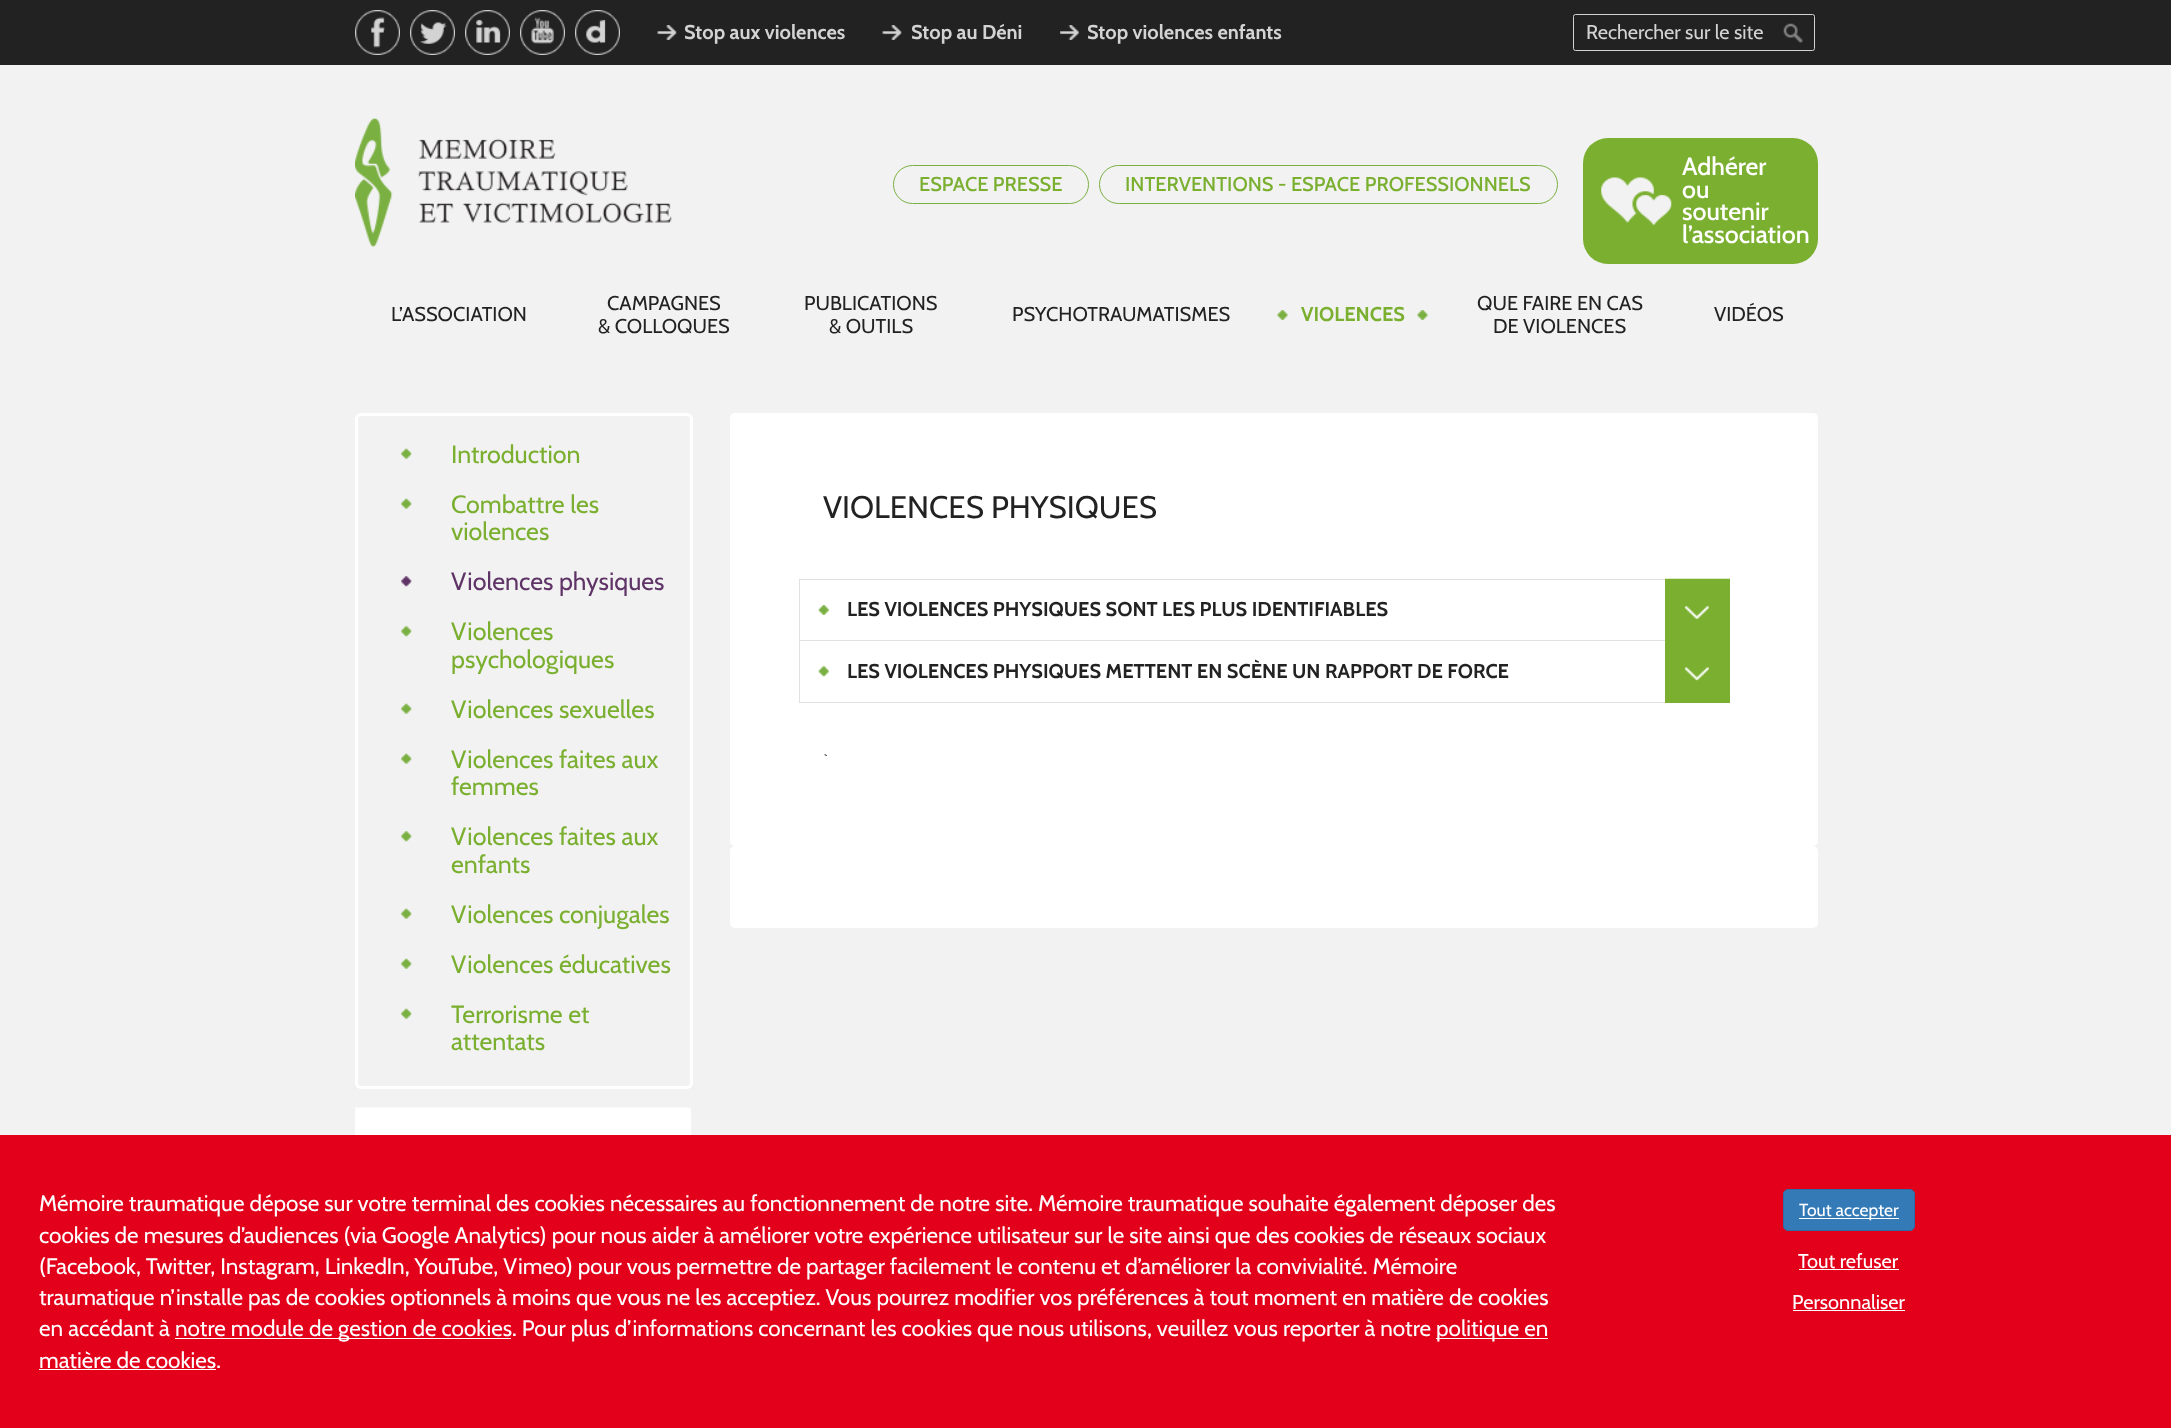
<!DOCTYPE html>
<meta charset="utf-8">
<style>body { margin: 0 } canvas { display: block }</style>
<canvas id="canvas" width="2171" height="1428"></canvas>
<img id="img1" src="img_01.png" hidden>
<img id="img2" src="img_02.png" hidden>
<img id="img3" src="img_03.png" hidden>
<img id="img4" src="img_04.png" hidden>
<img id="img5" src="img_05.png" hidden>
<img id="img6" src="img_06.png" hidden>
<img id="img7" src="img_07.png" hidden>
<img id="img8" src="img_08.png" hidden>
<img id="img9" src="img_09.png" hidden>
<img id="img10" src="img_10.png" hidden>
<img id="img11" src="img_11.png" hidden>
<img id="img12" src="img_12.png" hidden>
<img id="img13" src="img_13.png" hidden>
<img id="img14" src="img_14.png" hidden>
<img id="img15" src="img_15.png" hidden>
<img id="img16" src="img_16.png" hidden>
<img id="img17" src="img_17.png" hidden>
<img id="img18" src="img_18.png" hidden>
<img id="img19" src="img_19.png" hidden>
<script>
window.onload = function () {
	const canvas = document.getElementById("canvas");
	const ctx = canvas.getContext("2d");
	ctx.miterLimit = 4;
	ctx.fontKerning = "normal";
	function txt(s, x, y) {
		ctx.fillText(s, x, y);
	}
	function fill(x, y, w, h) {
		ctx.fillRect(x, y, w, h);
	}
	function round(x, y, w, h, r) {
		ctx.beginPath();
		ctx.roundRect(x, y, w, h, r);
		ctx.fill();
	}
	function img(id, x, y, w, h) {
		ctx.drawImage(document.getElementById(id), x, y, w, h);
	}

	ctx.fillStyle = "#F2F2F2";
	fill(0, 0, 2171, 1428);
	ctx.fillStyle = "#222222";
	fill(0, 0, 2171, 65);
	img("img1", 355, 10, 45, 45);
	img("img2", 410, 10, 45, 45);
	img("img3", 465, 10, 45, 45);
	img("img4", 520, 10, 45, 45);
	img("img5", 575, 10, 45, 45);
	img("img6", 657, 25, 20, 15);
	img("img6", 882, 25, 20, 15);
	img("img7", 1060, 25, 19, 15);
	ctx.beginPath();
	ctx.roundRect(1573.5, 14.5, 241, 36, 2);
	ctx.strokeStyle = "#D2D2D2";
	ctx.stroke();
	img("img8", 1783, 23, 20, 20);
	img("img9", 355, 118, 317, 129);
	ctx.beginPath();
	ctx.roundRect(893.5, 165.5, 195, 38, 19);
	ctx.strokeStyle = "#7AB042";
	ctx.stroke();
	ctx.beginPath();
	ctx.roundRect(1099.5, 165.5, 458, 38, 19);
	ctx.stroke();
	ctx.fillStyle = "#7AAF30";
	round(1583, 138, 235, 126, 25);
	img("img10", 1601, 177, 71, 48);
	img("img11", 1277, 310, 11, 10);
	img("img11", 1417, 310, 11, 10);
	ctx.beginPath();
	ctx.roundRect(356.5, 414.5, 335, 673, 4.5);
	ctx.strokeStyle = "#FFFFFF";
	ctx.lineWidth = 3;
	ctx.stroke();
	img("img12", 401, 448, 11, 11);
	img("img12", 401, 498, 11, 11);
	img("img13", 401, 576, 11, 11);
	img("img14", 401, 626, 11, 11);
	img("img12", 401, 703, 11, 11);
	img("img12", 401, 753, 11, 11);
	img("img14", 401, 831, 11, 11);
	img("img12", 401, 908, 11, 11);
	img("img12", 401, 958, 11, 11);
	img("img12", 401, 1008, 11, 11);
	img("img15", 355, 1107, 336, 28);
	ctx.fillStyle = "#FFFFFF";
	round(730, 413, 1088, 433, 5);
	ctx.strokeStyle = "#E1E1E1";
	ctx.lineWidth = 1;
	ctx.strokeRect(799.5, 579.5, 930, 61);
	img("img16", 818, 605, 11, 10);
	img("img17", 1665, 578, 65, 62);
	ctx.strokeRect(799.5, 640.5, 930, 62);
	img("img18", 818, 666, 11, 11);
	ctx.fillStyle = "#7AAF30";
	fill(1665, 640, 65, 63);
	img("img19", 1684, 667, 25, 14);
	ctx.fillStyle = "#FFFFFF";
	round(730, 846, 1088, 82, 5);
	ctx.fillStyle = "#E2001A";
	fill(0, 1135, 2171, 293);
	ctx.fillStyle = "#FFFFFF";
	fill(175, 1338, 336, 1);
	fill(1436, 1338, 112, 1);
	fill(39, 1369, 177, 1);
	ctx.fillStyle = "#337AB7";
	ctx.beginPath();
	ctx.roundRect(1783.5, 1189.5, 131, 41, 4.5);
	ctx.fill();
	ctx.strokeStyle = "#2E6DA4";
	ctx.stroke();
	ctx.fillStyle = "#FFFFFF";
	fill(1799, 1218, 100, 1);
	fill(1799, 1269, 100, 1);
	fill(1793, 1310, 112, 1);
	ctx.font = "bold 20px Cabin";
	ctx.fillStyle = "#D3D3D3";
	txt("Stop aux violences", 684, 39);
	txt("Stop au Déni", 911, 39);
	txt("Stop violences enfants", 1087, 39);
	ctx.font = "20px Cabin";
	txt("Rechercher sur le site", 1586, 39);
	ctx.font = "500 20px Cabin";
	ctx.fillStyle = "#7AAF30";
	txt("ESPACE PRESSE", 919, 191);
	txt("INTERVENTIONS - ESPACE PROFESSIONNELS", 1125, 191);
	ctx.font = "500 25px Cabin";
	ctx.fillStyle = "#FFFFFF";
	txt("Adhérer", 1682, 175);
	txt("ou", 1682, 198);
	txt("soutenir", 1682, 220);
	txt("l’association", 1682, 243);
	ctx.font = "20px Cabin";
	ctx.fillStyle = "#222222";
	txt("L’ASSOCIATION", 391, 321);
	txt("CAMPAGNES", 607, 310);
	txt("& COLLOQUES", 598, 333);
	txt("PUBLICATIONS", 804, 310);
	txt("& OUTILS", 829, 333);
	txt("PSYCHOTRAUMATISMES", 1012, 321);
	ctx.font = "bold 20px Cabin";
	ctx.fillStyle = "#7AAF30";
	txt("VIOLENCES", 1301, 321);
	ctx.font = "20px Cabin";
	ctx.fillStyle = "#222222";
	txt("QUE FAIRE EN CAS", 1477, 310);
	txt("DE VIOLENCES", 1493, 333);
	txt("VIDÉOS", 1714, 321);
	ctx.font = "25px Cabin";
	ctx.fillStyle = "#7AAF30";
	txt("Introduction", 451, 463);
	txt("Combattre les", 451, 513);
	txt("violences", 451, 540);
	ctx.fillStyle = "#5F3466";
	txt("Violences physiques", 451, 590);
	ctx.fillStyle = "#7AAF30";
	txt("Violences", 451, 640);
	txt("psychologiques", 451, 668);
	txt("Violences sexuelles", 451, 718);
	txt("Violences faites aux", 451, 768);
	txt("femmes", 451, 795);
	txt("Violences faites aux", 451, 845);
	txt("enfants", 451, 873);
	txt("Violences conjugales", 451, 923);
	txt("Violences éducatives", 451, 973);
	txt("Terrorisme et", 451, 1023);
	txt("attentats", 451, 1050);
	ctx.font = "31.25px Cabin";
	ctx.fillStyle = "#222222";
	txt("VIOLENCES PHYSIQUES", 823, 518);
	ctx.font = "bold 20px Cabin";
	txt("LES VIOLENCES PHYSIQUES SONT LES PLUS IDENTIFIABLES", 847, 616);
	txt("LES VIOLENCES PHYSIQUES METTENT EN SCÈNE UN RAPPORT DE FORCE", 847, 678);
	ctx.font = "12px Cabin";
	txt("`", 823, 763);
	ctx.font = "22.5px Cabin";
	ctx.fillStyle = "#FFFFFF";
	txt("Mémoire traumatique dépose sur votre terminal des cookies nécessaires au fonctionnement de notre site. Mémoire traumatique souhaite également déposer des", 39, 1211);
	txt("cookies de mesures d’audiences (via Google Analytics) pour nous aider à améliorer votre expérience utilisateur sur le site ainsi que des cookies de réseaux sociaux", 39, 1243);
	txt("(Facebook, Twitter, Instagram, LinkedIn, YouTube, Vimeo) pour vous permettre de partager facilement le contenu et d’améliorer la convivialité. Mémoire", 39, 1274);
	txt("traumatique n’installe pas de cookies optionnels à moins que vous ne les acceptiez. Vous pourrez modifier vos préférences à tout moment en matière de cookies", 39, 1305);
	txt("en accédant à", 39, 1336);
	txt("notre module de gestion de cookies. Pour plus d’informations concernant les cookies que nous utilisons, veuillez vous reporter à notre", 175, 1336);
	txt("politique en", 1436, 1336);
	txt("matière de cookies.", 39, 1368);
	ctx.font = "17.5px Cabin";
	txt("Tout accepter", 1799, 1216);
	ctx.font = "20px Cabin";
	txt("Tout refuser", 1798, 1268);
	txt("Personnaliser", 1792, 1309);
};
</script>
